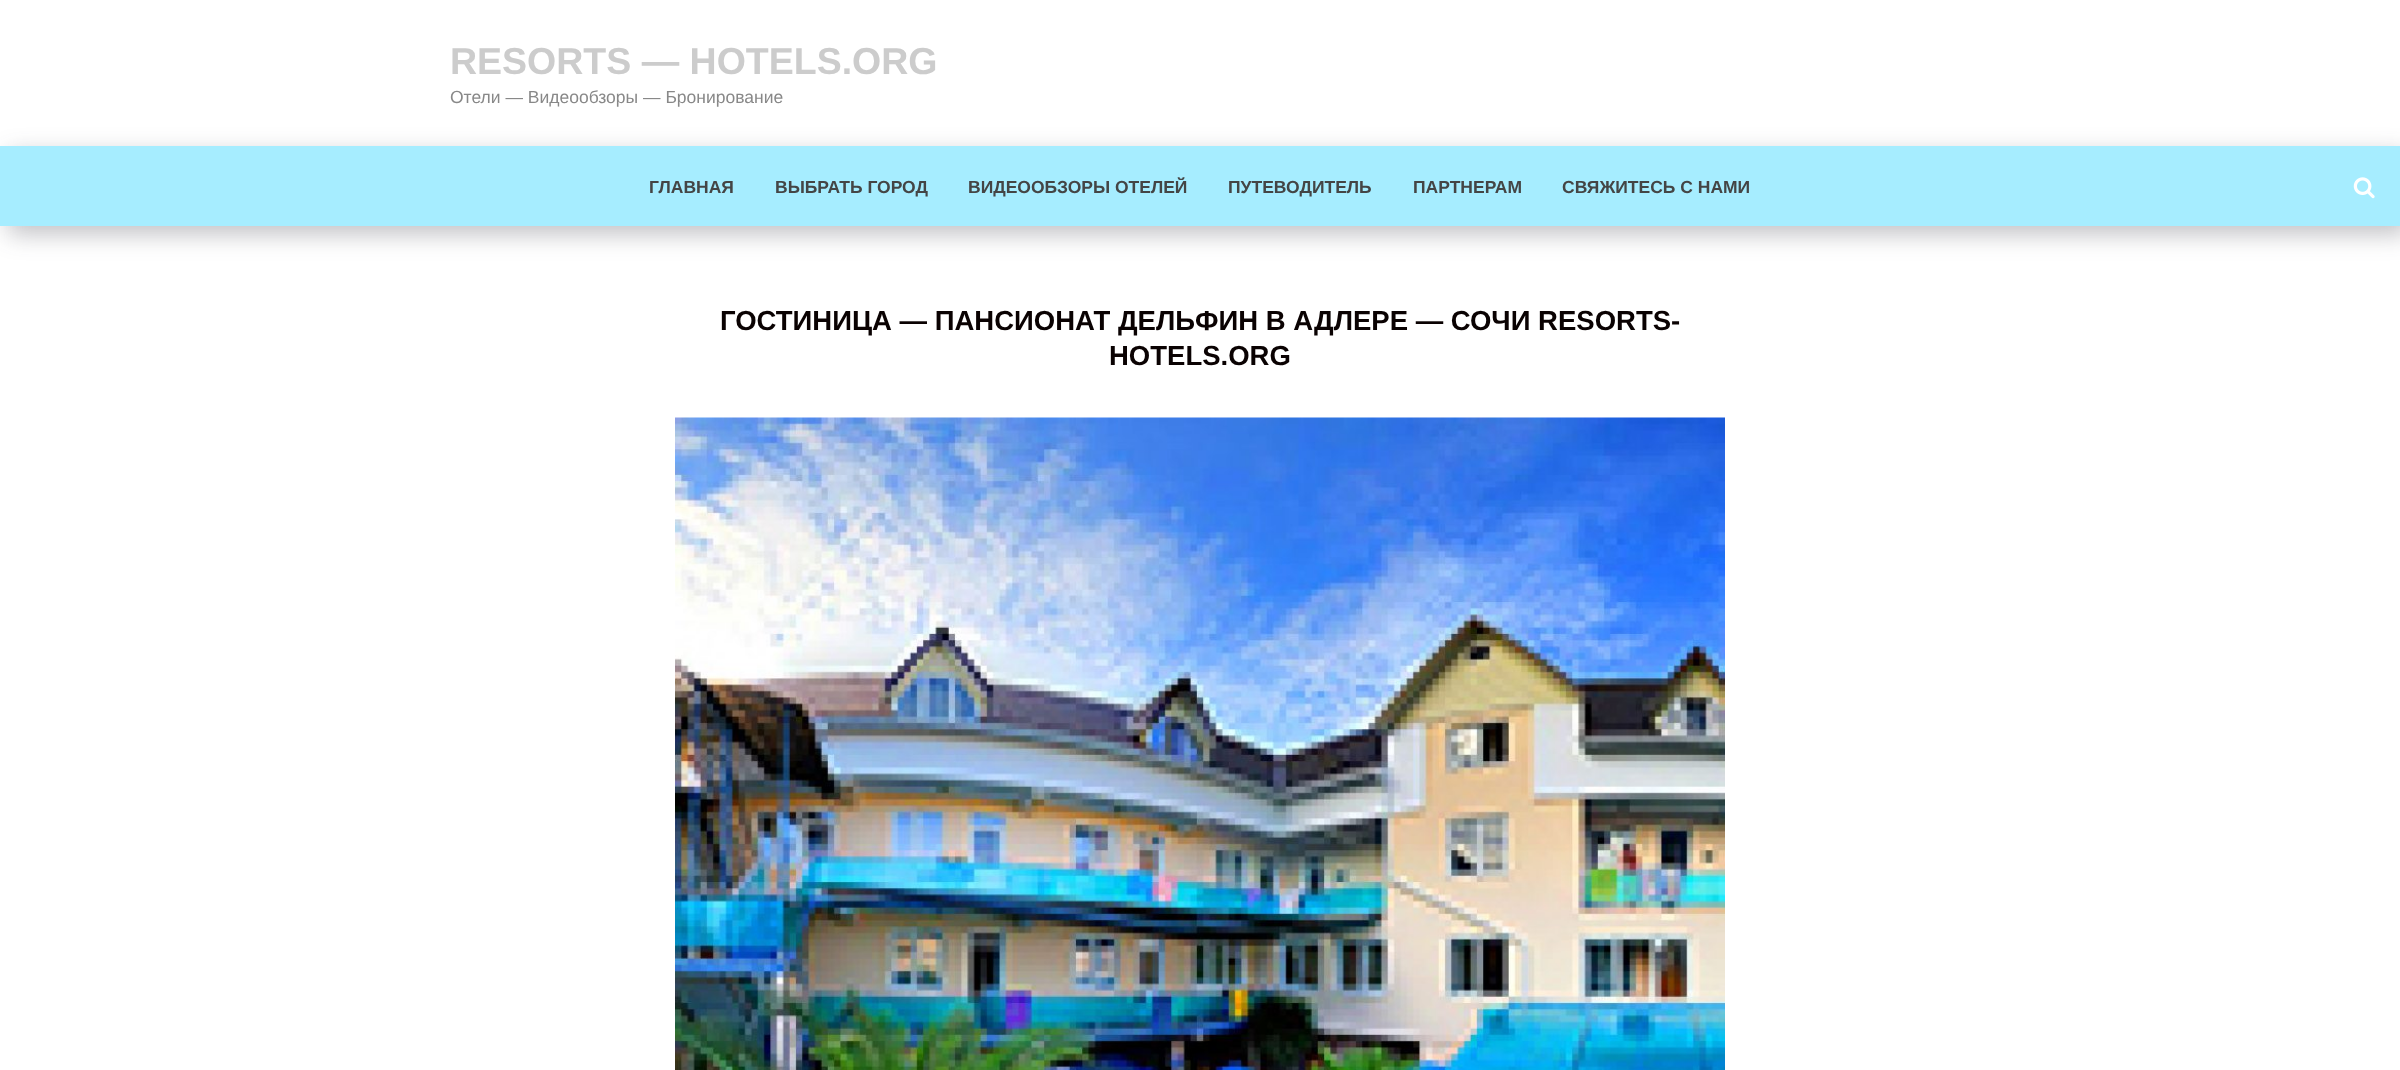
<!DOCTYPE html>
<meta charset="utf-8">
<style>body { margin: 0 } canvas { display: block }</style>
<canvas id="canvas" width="2400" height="1070"></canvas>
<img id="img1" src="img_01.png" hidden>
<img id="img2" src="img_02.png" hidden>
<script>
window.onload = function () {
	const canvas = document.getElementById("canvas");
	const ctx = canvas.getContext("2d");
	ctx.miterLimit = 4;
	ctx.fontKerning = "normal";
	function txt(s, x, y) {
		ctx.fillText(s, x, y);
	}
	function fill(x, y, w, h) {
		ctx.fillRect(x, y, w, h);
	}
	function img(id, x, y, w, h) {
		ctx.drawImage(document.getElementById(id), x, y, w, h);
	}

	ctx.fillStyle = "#FFFFFF";
	fill(0, 0, 2400, 1070);
	ctx.fillStyle = "rgba(48, 48, 60, 0.3)";
	ctx.filter = "blur(12.5px)";
	ctx.beginPath();
	ctx.rect(8, 154, 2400, 80);
	ctx.fill();
	ctx.filter = "none";
	ctx.fillStyle = "#A6EDFF";
	fill(0, 146, 2400, 80);
	img("img1", 2353, 177, 22, 22);
	img("img2", 675, 417, 1050, 653);
	ctx.font = "bold 37.5px Liberation Sans";
	ctx.fillStyle = "#CCCCCC";
	txt("RESORTS — HOTELS.ORG", 450, 74);
	ctx.font = "17.5px Liberation Sans";
	ctx.fillStyle = "#888888";
	txt("Отели — Видеообзоры — Бронирование", 450, 103);
	ctx.font = "bold 17.5px Liberation Sans";
	ctx.fillStyle = "#444545";
	txt("ГЛАВНАЯ", 649, 193);
	txt("ВЫБРАТЬ ГОРОД", 775, 193);
	txt("ВИДЕООБЗОРЫ ОТЕЛЕЙ", 968, 193);
	txt("ПУТЕВОДИТЕЛЬ", 1228, 193);
	txt("ПАРТНЕРАМ", 1413, 193);
	txt("СВЯЖИТЕСЬ С НАМИ", 1562, 193);
	ctx.font = "bold 27.5px Liberation Sans";
	ctx.fillStyle = "#0A0202";
	txt("ГОСТИНИЦА — ПАНСИОНАТ ДЕЛЬФИН В АДЛЕРЕ — СОЧИ RESORTS-", 720, 330);
	txt("HOTELS.ORG", 1109, 365);
};
</script>
